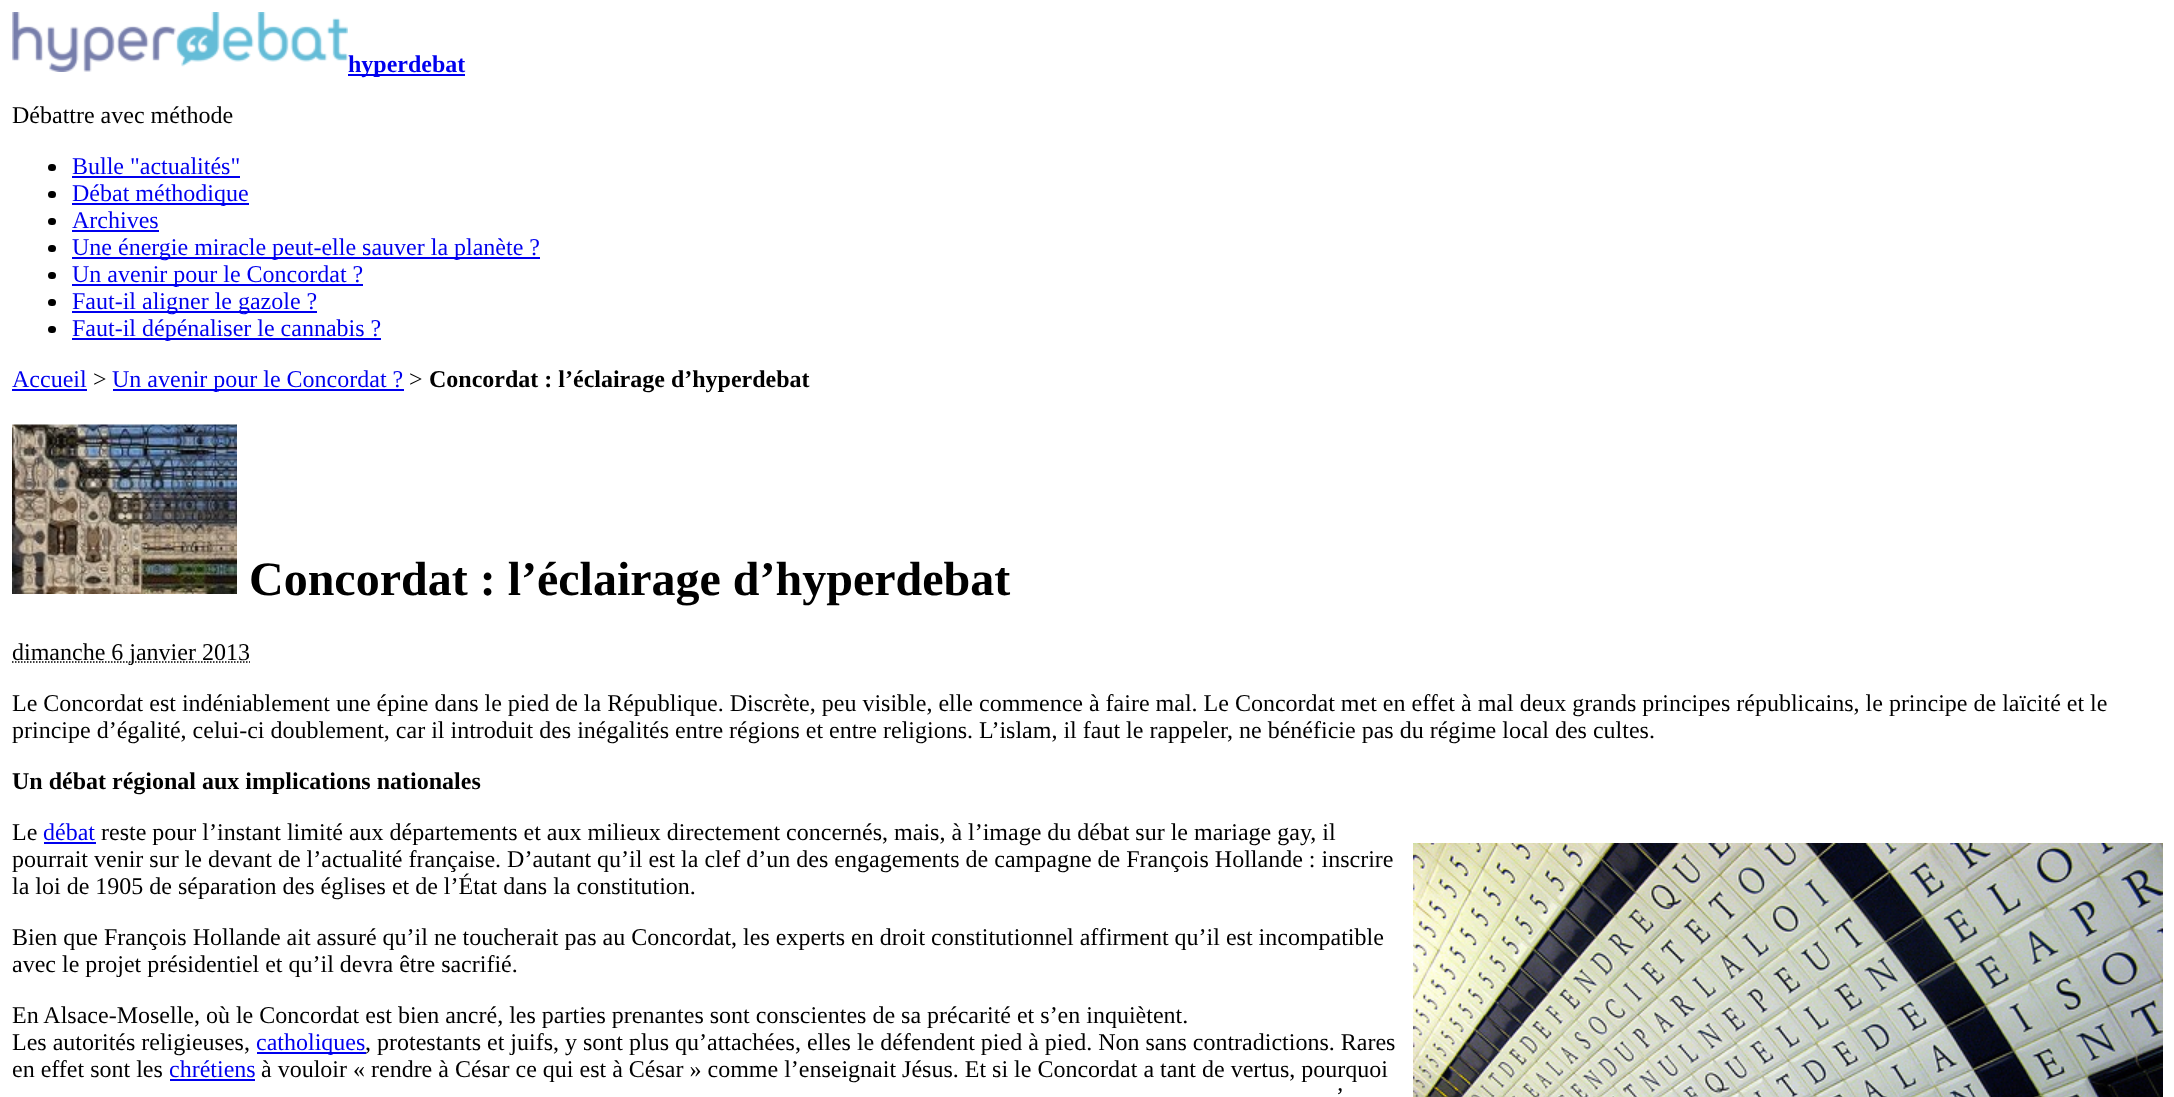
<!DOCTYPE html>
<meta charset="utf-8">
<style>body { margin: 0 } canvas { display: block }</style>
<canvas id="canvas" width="2174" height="1097"></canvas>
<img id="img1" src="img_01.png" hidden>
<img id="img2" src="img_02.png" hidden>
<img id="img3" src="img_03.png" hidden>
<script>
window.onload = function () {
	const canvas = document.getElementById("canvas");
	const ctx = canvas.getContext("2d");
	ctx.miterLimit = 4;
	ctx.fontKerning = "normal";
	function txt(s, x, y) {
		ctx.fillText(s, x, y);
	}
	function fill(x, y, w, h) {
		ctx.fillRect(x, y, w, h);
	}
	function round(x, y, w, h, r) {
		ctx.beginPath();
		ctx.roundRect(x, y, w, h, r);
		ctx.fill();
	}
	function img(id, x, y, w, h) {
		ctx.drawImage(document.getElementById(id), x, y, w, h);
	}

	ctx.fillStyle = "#FFFFFF";
	fill(0, 0, 2174, 1097);
	img("img1", 12, 12, 336, 60);
	ctx.fillStyle = "#0000EE";
	fill(348, 74, 117, 2);
	ctx.fillStyle = "#000000";
	round(48, 164, 8, 7, 3.5);
	ctx.fillStyle = "#0000EE";
	fill(72, 176, 168, 2);
	ctx.fillStyle = "#000000";
	round(48, 191, 8, 7, 3.5);
	ctx.fillStyle = "#0000EE";
	fill(72, 203, 177, 2);
	ctx.fillStyle = "#000000";
	round(48, 218, 8, 7, 3.5);
	ctx.fillStyle = "#0000EE";
	fill(72, 230, 87, 2);
	ctx.fillStyle = "#000000";
	round(48, 245, 8, 7, 3.5);
	ctx.fillStyle = "#0000EE";
	fill(72, 257, 468, 2);
	ctx.fillStyle = "#000000";
	round(48, 272, 8, 7, 3.5);
	ctx.fillStyle = "#0000EE";
	fill(72, 284, 291, 2);
	ctx.fillStyle = "#000000";
	round(48, 299, 8, 7, 3.5);
	ctx.fillStyle = "#0000EE";
	fill(72, 311, 245, 2);
	ctx.fillStyle = "#000000";
	round(48, 326, 8, 7, 3.5);
	ctx.fillStyle = "#0000EE";
	fill(72, 338, 309, 2);
	fill(12, 389, 75, 2);
	fill(113, 389, 291, 2);
	img("img2", 12, 424, 225, 170);
	ctx.beginPath();
	ctx.moveTo(12, 662);
	ctx.lineTo(250, 662);
	ctx.strokeStyle = "#000000";
	ctx.lineWidth = 1.5;
	ctx.setLineDash([1.5, 1.5]);
	ctx.stroke();
	fill(44, 842, 52, 2);
	img("img3", 1413, 843, 750, 254);
	fill(257, 1052, 109, 2);
	fill(170, 1079, 85, 2);
	ctx.font = "bold 24px Liberation Serif";
	txt("hyperdebat", 348, 72);
	ctx.font = "24px Liberation Serif";
	ctx.fillStyle = "#000000";
	txt("Débattre avec méthode", 12, 123);
	ctx.fillStyle = "#0000EE";
	txt("Bulle \"actualités\"", 72, 174);
	txt("Débat méthodique", 72, 201);
	txt("Archives", 72, 228);
	txt("Une énergie miracle peut-elle sauver la planète ?", 72, 255);
	txt("Un avenir pour le Concordat ?", 72, 282);
	txt("Faut-il aligner le gazole ?", 72, 309);
	txt("Faut-il dépénaliser le cannabis ?", 72, 336);
	txt("Accueil", 12, 387);
	ctx.fillStyle = "#000000";
	txt(">", 93, 387);
	ctx.fillStyle = "#0000EE";
	txt("Un avenir pour le Concordat ?", 112, 387);
	ctx.fillStyle = "#000000";
	txt(">", 409, 387);
	ctx.font = "bold 24px Liberation Serif";
	txt("Concordat : l’éclairage d’hyperdebat", 429, 387);
	ctx.font = "bold 48px Liberation Serif";
	txt("Concordat : l’éclairage d’hyperdebat", 249, 595);
	ctx.font = "24px Liberation Serif";
	txt("dimanche 6 janvier 2013", 12, 660);
	txt("Le Concordat est indéniablement une épine dans le pied de la République. Discrète, peu visible, elle commence à faire mal. Le Concordat met en effet à mal deux grands principes républicains, le principe de laïcité et le", 12, 711);
	txt("principe d’égalité, celui-ci doublement, car il introduit des inégalités entre régions et entre religions. L’islam, il faut le rappeler, ne bénéficie pas du régime local des cultes.", 12, 738);
	ctx.font = "bold 24px Liberation Serif";
	txt("Un débat régional aux implications nationales", 12, 789);
	ctx.font = "24px Liberation Serif";
	txt("Le", 12, 840);
	ctx.fillStyle = "#0000EE";
	txt("débat", 43, 840);
	ctx.fillStyle = "#000000";
	txt("reste pour l’instant limité aux départements et aux milieux directement concernés, mais, à l’image du débat sur le mariage gay, il", 101, 840);
	txt("pourrait venir sur le devant de l’actualité française. D’autant qu’il est la clef d’un des engagements de campagne de François Hollande : inscrire", 12, 867);
	txt("la loi de 1905 de séparation des églises et de l’État dans la constitution.", 12, 894);
	txt("Bien que François Hollande ait assuré qu’il ne toucherait pas au Concordat, les experts en droit constitutionnel affirment qu’il est incompatible", 12, 945);
	txt("avec le projet présidentiel et qu’il devra être sacrifié.", 12, 972);
	txt("En Alsace-Moselle, où le Concordat est bien ancré, les parties prenantes sont conscientes de sa précarité et s’en inquiètent.", 12, 1023);
	txt("Les autorités religieuses,", 12, 1050);
	ctx.fillStyle = "#0000EE";
	txt("catholiques", 256, 1050);
	ctx.fillStyle = "#000000";
	txt(", protestants et juifs, y sont plus qu’attachées, elles le défendent pied à pied. Non sans contradictions. Rares", 365, 1050);
	txt("en effet sont les", 12, 1077);
	ctx.fillStyle = "#0000EE";
	txt("chrétiens", 169, 1077);
	ctx.fillStyle = "#000000";
	txt("à vouloir « rendre à César ce qui est à César » comme l’enseignait Jésus. Et si le Concordat a tant de vertus, pourquoi", 261, 1077);
	txt("’", 1336, 1104);
};
</script>
